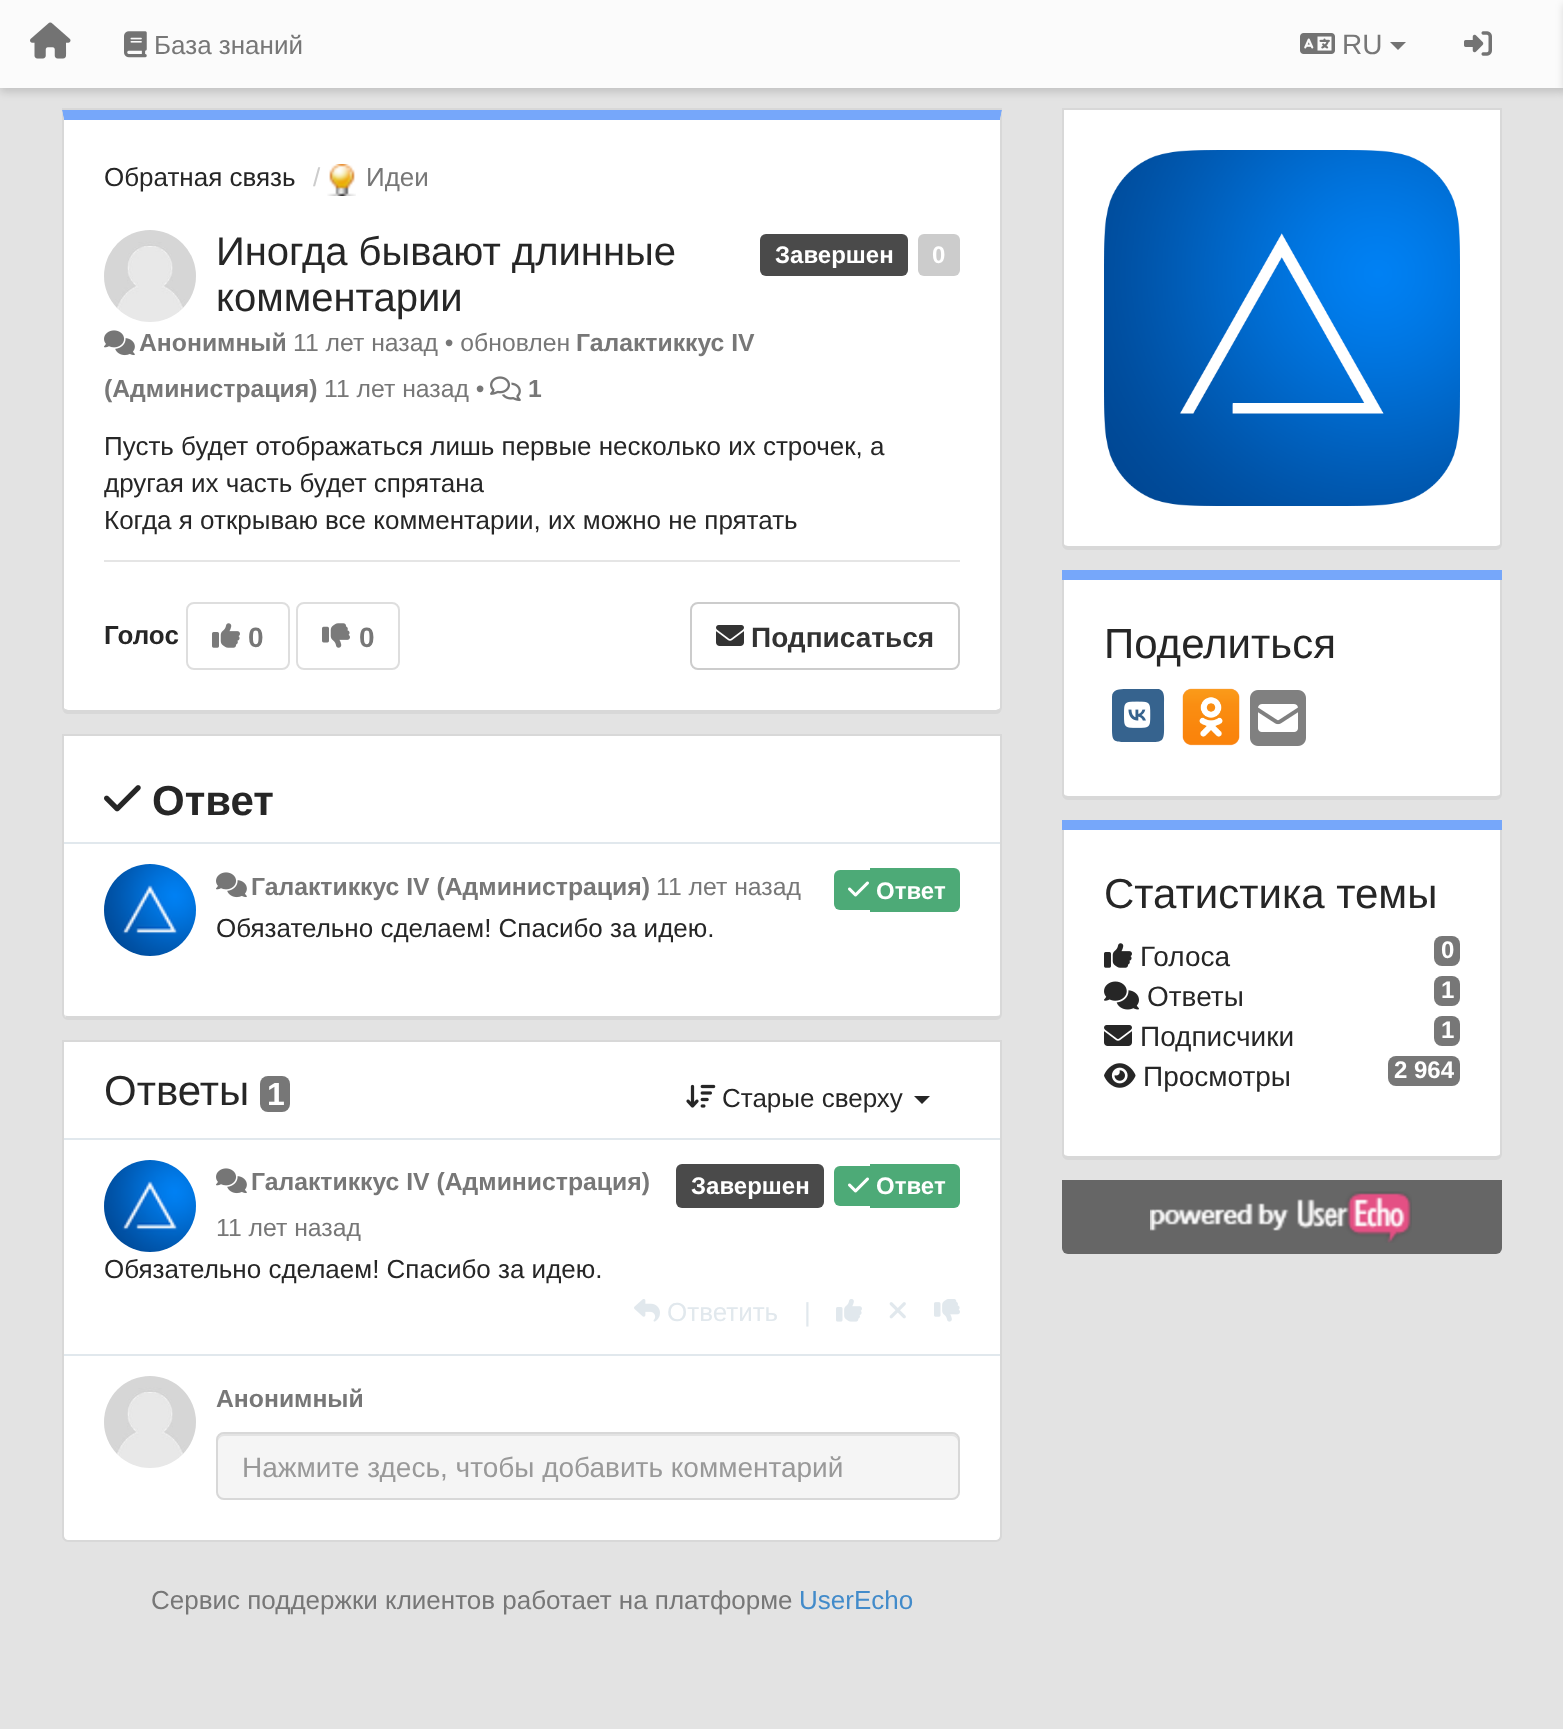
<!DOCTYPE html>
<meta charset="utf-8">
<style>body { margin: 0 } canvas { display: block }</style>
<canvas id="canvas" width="1563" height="1729"></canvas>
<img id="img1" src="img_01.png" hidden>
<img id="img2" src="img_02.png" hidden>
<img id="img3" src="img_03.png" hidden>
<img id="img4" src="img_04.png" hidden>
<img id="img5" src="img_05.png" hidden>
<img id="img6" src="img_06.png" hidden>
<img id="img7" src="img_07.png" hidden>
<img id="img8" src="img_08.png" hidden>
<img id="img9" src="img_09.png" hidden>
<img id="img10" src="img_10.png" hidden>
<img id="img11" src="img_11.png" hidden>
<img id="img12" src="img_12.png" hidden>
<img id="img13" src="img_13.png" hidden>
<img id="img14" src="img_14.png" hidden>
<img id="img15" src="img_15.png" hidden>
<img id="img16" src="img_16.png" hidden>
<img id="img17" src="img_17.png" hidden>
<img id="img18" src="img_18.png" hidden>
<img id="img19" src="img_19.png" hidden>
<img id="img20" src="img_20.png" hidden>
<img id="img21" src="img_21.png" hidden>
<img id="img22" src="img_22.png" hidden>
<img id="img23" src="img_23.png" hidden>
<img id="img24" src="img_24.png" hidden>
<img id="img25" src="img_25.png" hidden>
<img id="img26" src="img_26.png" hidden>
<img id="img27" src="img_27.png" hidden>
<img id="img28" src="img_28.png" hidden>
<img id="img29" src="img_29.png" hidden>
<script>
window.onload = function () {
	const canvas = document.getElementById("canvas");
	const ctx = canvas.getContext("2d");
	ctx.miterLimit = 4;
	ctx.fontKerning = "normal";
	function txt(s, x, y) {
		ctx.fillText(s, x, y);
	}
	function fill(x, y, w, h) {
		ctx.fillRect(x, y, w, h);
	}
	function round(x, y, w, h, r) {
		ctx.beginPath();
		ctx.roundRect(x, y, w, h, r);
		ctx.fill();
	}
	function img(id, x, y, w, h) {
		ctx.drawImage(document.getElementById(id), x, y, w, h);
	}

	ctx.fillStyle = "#E3E3E3";
	fill(0, 0, 1563, 1729);
	ctx.fillStyle = "rgba(0, 0, 0, 0.15)";
	ctx.filter = "blur(4px)";
	ctx.beginPath();
	ctx.rect(0, 4, 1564, 88);
	ctx.fill();
	ctx.filter = "none";
	ctx.fillStyle = "#FBFBFB";
	fill(0, 0, 1563, 88);
	img("img1", 30, 22, 41, 37);
	img("img2", 124, 31, 23, 27);
	img("img3", 1300, 33, 35, 21);
	ctx.fillStyle = "#737373";
	ctx.beginPath();
	ctx.moveTo(1390, 42);
	ctx.lineTo(1406, 42);
	ctx.lineTo(1398, 50);
	ctx.closePath();
	ctx.fill();
	img("img4", 1464, 31, 28, 25);
	ctx.fillStyle = "rgba(0, 0, 0, 0.15)";
	ctx.filter = "blur(4px)";
	ctx.beginPath();
	ctx.rect(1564, 4, 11, 88);
	ctx.fill();
	ctx.filter = "none";
	ctx.fillStyle = "#D8D8D8";
	fill(62, 108, 940, 2);
	ctx.fillStyle = "#FFFFFF";
	ctx.beginPath();
	ctx.moveTo(64, 120);
	ctx.lineTo(1000, 120);
	ctx.lineTo(1000, 708);
	ctx.bezierCurveTo(1000, 709, 998, 710, 996, 710);
	ctx.lineTo(68, 710);
	ctx.bezierCurveTo(66, 710, 64, 709, 64, 708);
	ctx.closePath();
	ctx.fill();
	ctx.fillStyle = "#76A7FA";
	ctx.beginPath();
	ctx.moveTo(62, 110);
	ctx.lineTo(64, 120);
	ctx.lineTo(1000, 120);
	ctx.lineTo(1002, 110);
	ctx.closePath();
	ctx.fill();
	ctx.fillStyle = "#D8D8D8";
	ctx.beginPath();
	ctx.moveTo(1002, 110);
	ctx.lineTo(1000, 120);
	ctx.lineTo(1000, 708);
	ctx.lineTo(999, 709);
	ctx.lineTo(1001, 711);
	ctx.lineTo(1002, 708);
	ctx.closePath();
	ctx.fill();
	ctx.beginPath();
	ctx.moveTo(68, 714);
	ctx.lineTo(996, 714);
	ctx.bezierCurveTo(998, 714, 1000, 713, 1001, 711);
	ctx.lineTo(999, 709);
	ctx.lineTo(996, 710);
	ctx.lineTo(68, 710);
	ctx.lineTo(65, 709);
	ctx.lineTo(63, 711);
	ctx.bezierCurveTo(64, 713, 66, 714, 68, 714);
	ctx.closePath();
	ctx.fill();
	ctx.beginPath();
	ctx.moveTo(64, 120);
	ctx.lineTo(62, 110);
	ctx.lineTo(62, 708);
	ctx.lineTo(63, 711);
	ctx.lineTo(65, 709);
	ctx.lineTo(64, 708);
	ctx.closePath();
	ctx.fill();
	img("img5", 327, 164, 29, 32);
	img("img6", 104, 230, 92, 92);
	ctx.fillStyle = "#4A4A4A";
	round(760, 234, 148, 42, 6);
	ctx.fillStyle = "#CCCCCC";
	round(918, 234, 42, 42, 6);
	img("img7", 104, 330, 31, 26);
	img("img8", 490, 376, 31, 26);
	ctx.fillStyle = "#E5E5E5";
	fill(104, 560, 856, 2);
	ctx.beginPath();
	ctx.roundRect(187, 603, 102, 66, 7);
	ctx.strokeStyle = "#DEDEDE";
	ctx.lineWidth = 2;
	ctx.stroke();
	img("img9", 212, 623, 28, 25);
	ctx.beginPath();
	ctx.roundRect(297, 603, 102, 66, 7);
	ctx.stroke();
	img("img10", 322, 623, 28, 25);
	ctx.beginPath();
	ctx.roundRect(691, 603, 268, 66, 7);
	ctx.strokeStyle = "#CCCCCC";
	ctx.stroke();
	img("img11", 716, 625, 28, 21);
	ctx.fillStyle = "#FFFFFF";
	ctx.beginPath();
	ctx.moveTo(64, 736);
	ctx.lineTo(1000, 736);
	ctx.lineTo(1000, 1014);
	ctx.bezierCurveTo(1000, 1015, 998, 1016, 996, 1016);
	ctx.lineTo(68, 1016);
	ctx.bezierCurveTo(66, 1016, 64, 1015, 64, 1014);
	ctx.closePath();
	ctx.fill();
	ctx.beginPath();
	ctx.roundRect(63, 735, 938, 284, [0, 0, 5, 5]);
	ctx.strokeStyle = "#D8D8D8";
	ctx.stroke();
	ctx.fillStyle = "#D8D8D8";
	fill(66, 1016, 934, 2);
	img("img12", 104, 785, 37, 27);
	ctx.fillStyle = "#E1E8ED";
	fill(64, 842, 936, 2);
	img("img13", 104, 864, 92, 92);
	img("img7", 216, 872, 31, 26);
	ctx.fillStyle = "#4DAA77";
	ctx.beginPath();
	ctx.roundRect(834, 870, 36, 40, [6, 0, 0, 6]);
	ctx.fill();
	ctx.beginPath();
	ctx.roundRect(870, 868, 90, 44, [0, 6, 6, 0]);
	ctx.fill();
	img("img14", 848, 881, 21, 16);
	ctx.fillStyle = "#D8D8D8";
	fill(62, 1040, 940, 2);
	ctx.fillStyle = "#FFFFFF";
	ctx.beginPath();
	ctx.roundRect(64, 1042, 936, 498, [0, 0, 4, 4]);
	ctx.fill();
	ctx.fillStyle = "#D8D8D8";
	ctx.beginPath();
	ctx.moveTo(62, 1042);
	ctx.lineTo(1002, 1042);
	ctx.lineTo(1002, 1536);
	ctx.bezierCurveTo(1002, 1539, 999, 1542, 996, 1542);
	ctx.lineTo(68, 1542);
	ctx.bezierCurveTo(65, 1542, 62, 1539, 62, 1536);
	ctx.closePath();
	ctx.moveTo(64, 1042);
	ctx.lineTo(1000, 1042);
	ctx.lineTo(1000, 1536);
	ctx.bezierCurveTo(1000, 1538, 998, 1540, 996, 1540);
	ctx.lineTo(68, 1540);
	ctx.bezierCurveTo(66, 1540, 64, 1538, 64, 1536);
	ctx.closePath();
	ctx.fill("evenodd");
	ctx.fillStyle = "#777777";
	round(260, 1076, 30, 36, 8);
	img("img15", 686, 1084, 30, 24);
	ctx.fillStyle = "#262626";
	ctx.beginPath();
	ctx.moveTo(914, 1096);
	ctx.lineTo(930, 1096);
	ctx.lineTo(922, 1104);
	ctx.closePath();
	ctx.fill();
	ctx.fillStyle = "#E1E8ED";
	fill(64, 1138, 936, 2);
	fill(64, 1354, 936, 2);
	img("img13", 104, 1160, 92, 92);
	img("img7", 216, 1168, 31, 26);
	ctx.fillStyle = "#4A4A4A";
	round(676, 1164, 148, 44, 6);
	ctx.fillStyle = "#4DAA77";
	ctx.beginPath();
	ctx.roundRect(834, 1166, 36, 40, [6, 0, 0, 6]);
	ctx.fill();
	ctx.beginPath();
	ctx.roundRect(870, 1164, 90, 44, [0, 6, 6, 0]);
	ctx.fill();
	img("img14", 848, 1177, 21, 16);
	img("img16", 634, 1299, 26, 23);
	img("img17", 836, 1299, 26, 23);
	img("img18", 889, 1302, 17, 17);
	img("img19", 934, 1299, 26, 23);
	img("img20", 104, 1376, 92, 92);
	ctx.fillStyle = "#F5F5F5";
	round(216, 1432, 744, 68, 8);
	ctx.fillStyle = "#E3E3E3";
	ctx.beginPath();
	ctx.moveTo(224, 1436);
	ctx.lineTo(952, 1436);
	ctx.bezierCurveTo(955, 1436, 958, 1439, 958, 1442);
	ctx.lineTo(958, 1440);
	ctx.bezierCurveTo(958, 1437, 955, 1434, 952, 1434);
	ctx.lineTo(224, 1434);
	ctx.bezierCurveTo(221, 1434, 218, 1437, 218, 1440);
	ctx.lineTo(218, 1442);
	ctx.bezierCurveTo(218, 1439, 221, 1436, 224, 1436);
	ctx.closePath();
	ctx.fill();
	ctx.beginPath();
	ctx.roundRect(217, 1433, 742, 66, 7);
	ctx.stroke();
	ctx.fillStyle = "#D8D8D8";
	fill(1062, 108, 440, 2);
	ctx.fillStyle = "#FFFFFF";
	ctx.beginPath();
	ctx.moveTo(1064, 110);
	ctx.lineTo(1500, 110);
	ctx.lineTo(1500, 544);
	ctx.bezierCurveTo(1500, 545, 1498, 546, 1496, 546);
	ctx.lineTo(1068, 546);
	ctx.bezierCurveTo(1066, 546, 1064, 545, 1064, 544);
	ctx.closePath();
	ctx.fill();
	ctx.fillStyle = "#D8D8D8";
	ctx.beginPath();
	ctx.moveTo(1062, 110);
	ctx.lineTo(1502, 110);
	ctx.lineTo(1502, 544);
	ctx.bezierCurveTo(1502, 547, 1499, 550, 1496, 550);
	ctx.lineTo(1068, 550);
	ctx.bezierCurveTo(1065, 550, 1062, 547, 1062, 544);
	ctx.closePath();
	ctx.moveTo(1064, 110);
	ctx.lineTo(1500, 110);
	ctx.lineTo(1500, 544);
	ctx.bezierCurveTo(1500, 545, 1498, 546, 1496, 546);
	ctx.lineTo(1068, 546);
	ctx.bezierCurveTo(1066, 546, 1064, 545, 1064, 544);
	ctx.closePath();
	ctx.fill("evenodd");
	img("img21", 1104, 150, 356, 356);
	ctx.fillStyle = "#76A7FA";
	fill(1062, 570, 440, 10);
	ctx.fillStyle = "#FFFFFF";
	ctx.beginPath();
	ctx.moveTo(1064, 580);
	ctx.lineTo(1500, 580);
	ctx.lineTo(1500, 794);
	ctx.bezierCurveTo(1500, 795, 1498, 796, 1496, 796);
	ctx.lineTo(1068, 796);
	ctx.bezierCurveTo(1066, 796, 1064, 795, 1064, 794);
	ctx.closePath();
	ctx.fill();
	ctx.fillStyle = "#D8D8D8";
	ctx.beginPath();
	ctx.moveTo(1062, 580);
	ctx.lineTo(1502, 580);
	ctx.lineTo(1502, 794);
	ctx.bezierCurveTo(1502, 797, 1499, 800, 1496, 800);
	ctx.lineTo(1068, 800);
	ctx.bezierCurveTo(1065, 800, 1062, 797, 1062, 794);
	ctx.closePath();
	ctx.moveTo(1064, 580);
	ctx.lineTo(1500, 580);
	ctx.lineTo(1500, 794);
	ctx.bezierCurveTo(1500, 795, 1498, 796, 1496, 796);
	ctx.lineTo(1068, 796);
	ctx.bezierCurveTo(1066, 796, 1064, 795, 1064, 794);
	ctx.closePath();
	ctx.fill("evenodd");
	ctx.fillStyle = "#36638E";
	ctx.beginPath();
	ctx.moveTo(1112, 697);
	ctx.bezierCurveTo(1112, 689, 1120, 689, 1126, 689);
	ctx.lineTo(1159, 689);
	ctx.bezierCurveTo(1165, 691, 1164, 698, 1164, 703);
	ctx.lineTo(1164, 716);
	ctx.bezierCurveTo(1164, 745, 1167, 742, 1138, 742);
	ctx.lineTo(1126, 742);
	ctx.bezierCurveTo(1113, 742, 1112, 741, 1112, 728);
	ctx.closePath();
	ctx.fill();
	img("img22", 1124, 701, 27, 27);
	img("img23", 1182, 688, 58, 58);
	img("img24", 1250, 690, 56, 56);
	ctx.fillStyle = "#76A7FA";
	fill(1062, 820, 440, 10);
	ctx.fillStyle = "#FFFFFF";
	ctx.beginPath();
	ctx.moveTo(1064, 830);
	ctx.lineTo(1500, 830);
	ctx.lineTo(1500, 1154);
	ctx.bezierCurveTo(1500, 1155, 1498, 1156, 1496, 1156);
	ctx.lineTo(1068, 1156);
	ctx.bezierCurveTo(1066, 1156, 1064, 1155, 1064, 1154);
	ctx.closePath();
	ctx.fill();
	ctx.fillStyle = "#D8D8D8";
	ctx.beginPath();
	ctx.moveTo(1062, 830);
	ctx.lineTo(1502, 830);
	ctx.lineTo(1502, 1154);
	ctx.bezierCurveTo(1502, 1157, 1499, 1160, 1496, 1160);
	ctx.lineTo(1068, 1160);
	ctx.bezierCurveTo(1065, 1160, 1062, 1157, 1062, 1154);
	ctx.closePath();
	ctx.moveTo(1064, 830);
	ctx.lineTo(1500, 830);
	ctx.lineTo(1500, 1154);
	ctx.bezierCurveTo(1500, 1155, 1498, 1156, 1496, 1156);
	ctx.lineTo(1068, 1156);
	ctx.bezierCurveTo(1066, 1156, 1064, 1155, 1064, 1154);
	ctx.closePath();
	ctx.fill("evenodd");
	img("img25", 1104, 943, 28, 25);
	ctx.fillStyle = "#777777";
	round(1434, 936, 26, 30, 8);
	img("img26", 1104, 981, 35, 29);
	round(1434, 976, 26, 30, 8);
	img("img27", 1104, 1025, 28, 21);
	round(1434, 1016, 26, 30, 8);
	img("img28", 1104, 1063, 32, 25);
	round(1388, 1056, 72, 30, 8);
	ctx.fillStyle = "#666666";
	ctx.beginPath();
	ctx.roundRect(1062, 1180, 440, 74, [0, 0, 6, 6]);
	ctx.fill();
	img("img29", 1150, 1191, 262, 52);
	ctx.font = "26px Liberation Sans";
	ctx.fillStyle = "#777777";
	txt("База знаний", 154, 54);
	ctx.font = "28px Liberation Sans";
	txt("RU", 1342, 54);
	ctx.font = "26px Liberation Sans";
	ctx.fillStyle = "#262626";
	txt("Обратная связь", 104, 186);
	ctx.fillStyle = "#CCCCCC";
	txt("/", 313, 186);
	ctx.fillStyle = "#777777";
	txt("Идеи", 366, 186);
	ctx.font = "40px Liberation Sans";
	ctx.fillStyle = "#262626";
	txt("Иногда бывают длинные", 216, 265);
	txt("комментарии", 216, 311);
	ctx.font = "bold 24px Liberation Sans";
	ctx.fillStyle = "#FFFFFF";
	txt("Завершен", 775, 263);
	txt("0", 932, 263);
	ctx.font = "bold 24.75px Liberation Sans";
	ctx.fillStyle = "#777777";
	txt("Анонимный", 139, 351);
	ctx.font = "24.75px Liberation Sans";
	txt("11 лет назад • обновлен", 293, 351);
	ctx.font = "bold 24.75px Liberation Sans";
	txt("Галактиккус IV", 576, 351);
	txt("(Администрация)", 104, 397);
	ctx.font = "24.75px Liberation Sans";
	txt("11 лет назад •", 324, 397);
	ctx.font = "bold 24.75px Liberation Sans";
	txt("1", 528, 397);
	ctx.font = "26px Liberation Sans";
	ctx.fillStyle = "#262626";
	txt("Пусть будет отображаться лишь первые несколько их строчек, а", 104, 455);
	txt("другая их часть будет спрятана", 104, 492);
	txt("Когда я открываю все комментарии, их можно не прятать", 104, 529);
	ctx.font = "bold 26px Liberation Sans";
	txt("Голос", 104, 644);
	ctx.font = "bold 28px Liberation Sans";
	ctx.fillStyle = "#777777";
	txt("0", 248, 647);
	txt("0", 359, 647);
	ctx.fillStyle = "#333333";
	txt("Подписаться", 751, 647);
	ctx.font = "bold 42px Liberation Sans";
	ctx.fillStyle = "#262626";
	txt("Ответ", 152, 815);
	ctx.font = "bold 24.75px Liberation Sans";
	ctx.fillStyle = "#777777";
	txt("Галактиккус IV (Администрация)", 251, 895);
	ctx.font = "24.75px Liberation Sans";
	txt("11 лет назад", 656, 895);
	ctx.font = "bold 24px Liberation Sans";
	ctx.fillStyle = "#FFFFFF";
	txt("Ответ", 876, 899);
	ctx.font = "26px Liberation Sans";
	ctx.fillStyle = "#262626";
	txt("Обязательно сделаем! Спасибо за идею.", 216, 937);
	ctx.font = "42px Liberation Sans";
	txt("Ответы", 104, 1105);
	ctx.font = "bold 32px Liberation Sans";
	ctx.fillStyle = "#FFFFFF";
	txt("1", 267, 1105);
	ctx.font = "26px Liberation Sans";
	ctx.fillStyle = "#262626";
	txt("Старые сверху", 722, 1107);
	ctx.font = "bold 24.75px Liberation Sans";
	ctx.fillStyle = "#777777";
	txt("Галактиккус IV (Администрация)", 251, 1190);
	ctx.font = "24.75px Liberation Sans";
	txt("11 лет назад", 216, 1236);
	ctx.font = "bold 24px Liberation Sans";
	ctx.fillStyle = "#FFFFFF";
	txt("Завершен", 691, 1194);
	txt("Ответ", 876, 1194);
	ctx.font = "26px Liberation Sans";
	ctx.fillStyle = "#262626";
	txt("Обязательно сделаем! Спасибо за идею.", 104, 1278);
	ctx.fillStyle = "#E1E8ED";
	txt("Ответить", 667, 1321);
	txt("|", 804, 1321);
	ctx.font = "bold 24.75px Liberation Sans";
	ctx.fillStyle = "#777777";
	txt("Анонимный", 216, 1407);
	ctx.save();
	ctx.beginPath();
	ctx.rect(242, 1450, 692, 32);
	ctx.clip();
	ctx.font = "28px Liberation Sans";
	ctx.fillStyle = "#999999";
	txt("Нажмите здесь, чтобы добавить комментарий", 242, 1477);
	ctx.restore();
	ctx.font = "26px Liberation Sans";
	txt("Сервис поддержки клиентов работает на платформе", 151, 1609);
	ctx.fillStyle = "#428BCA";
	txt("UserEcho", 799, 1609);
	ctx.font = "42px Liberation Sans";
	ctx.fillStyle = "#262626";
	txt("Поделиться", 1104, 658);
	txt("Статистика темы", 1104, 908);
	ctx.font = "28px Liberation Sans";
	txt("Голоса", 1140, 966);
	ctx.font = "bold 24px Liberation Sans";
	ctx.fillStyle = "#FFFFFF";
	txt("0", 1441, 958);
	ctx.font = "28px Liberation Sans";
	ctx.fillStyle = "#262626";
	txt("Ответы", 1147, 1006);
	ctx.font = "bold 24px Liberation Sans";
	ctx.fillStyle = "#FFFFFF";
	txt("1", 1441, 998);
	ctx.font = "28px Liberation Sans";
	ctx.fillStyle = "#262626";
	txt("Подписчики", 1140, 1046);
	ctx.font = "bold 24px Liberation Sans";
	ctx.fillStyle = "#FFFFFF";
	txt("1", 1441, 1038);
	ctx.font = "28px Liberation Sans";
	ctx.fillStyle = "#262626";
	txt("Просмотры", 1143, 1086);
	ctx.font = "bold 24px Liberation Sans";
	ctx.fillStyle = "#FFFFFF";
	txt("2 964", 1394, 1078);
};
</script>
